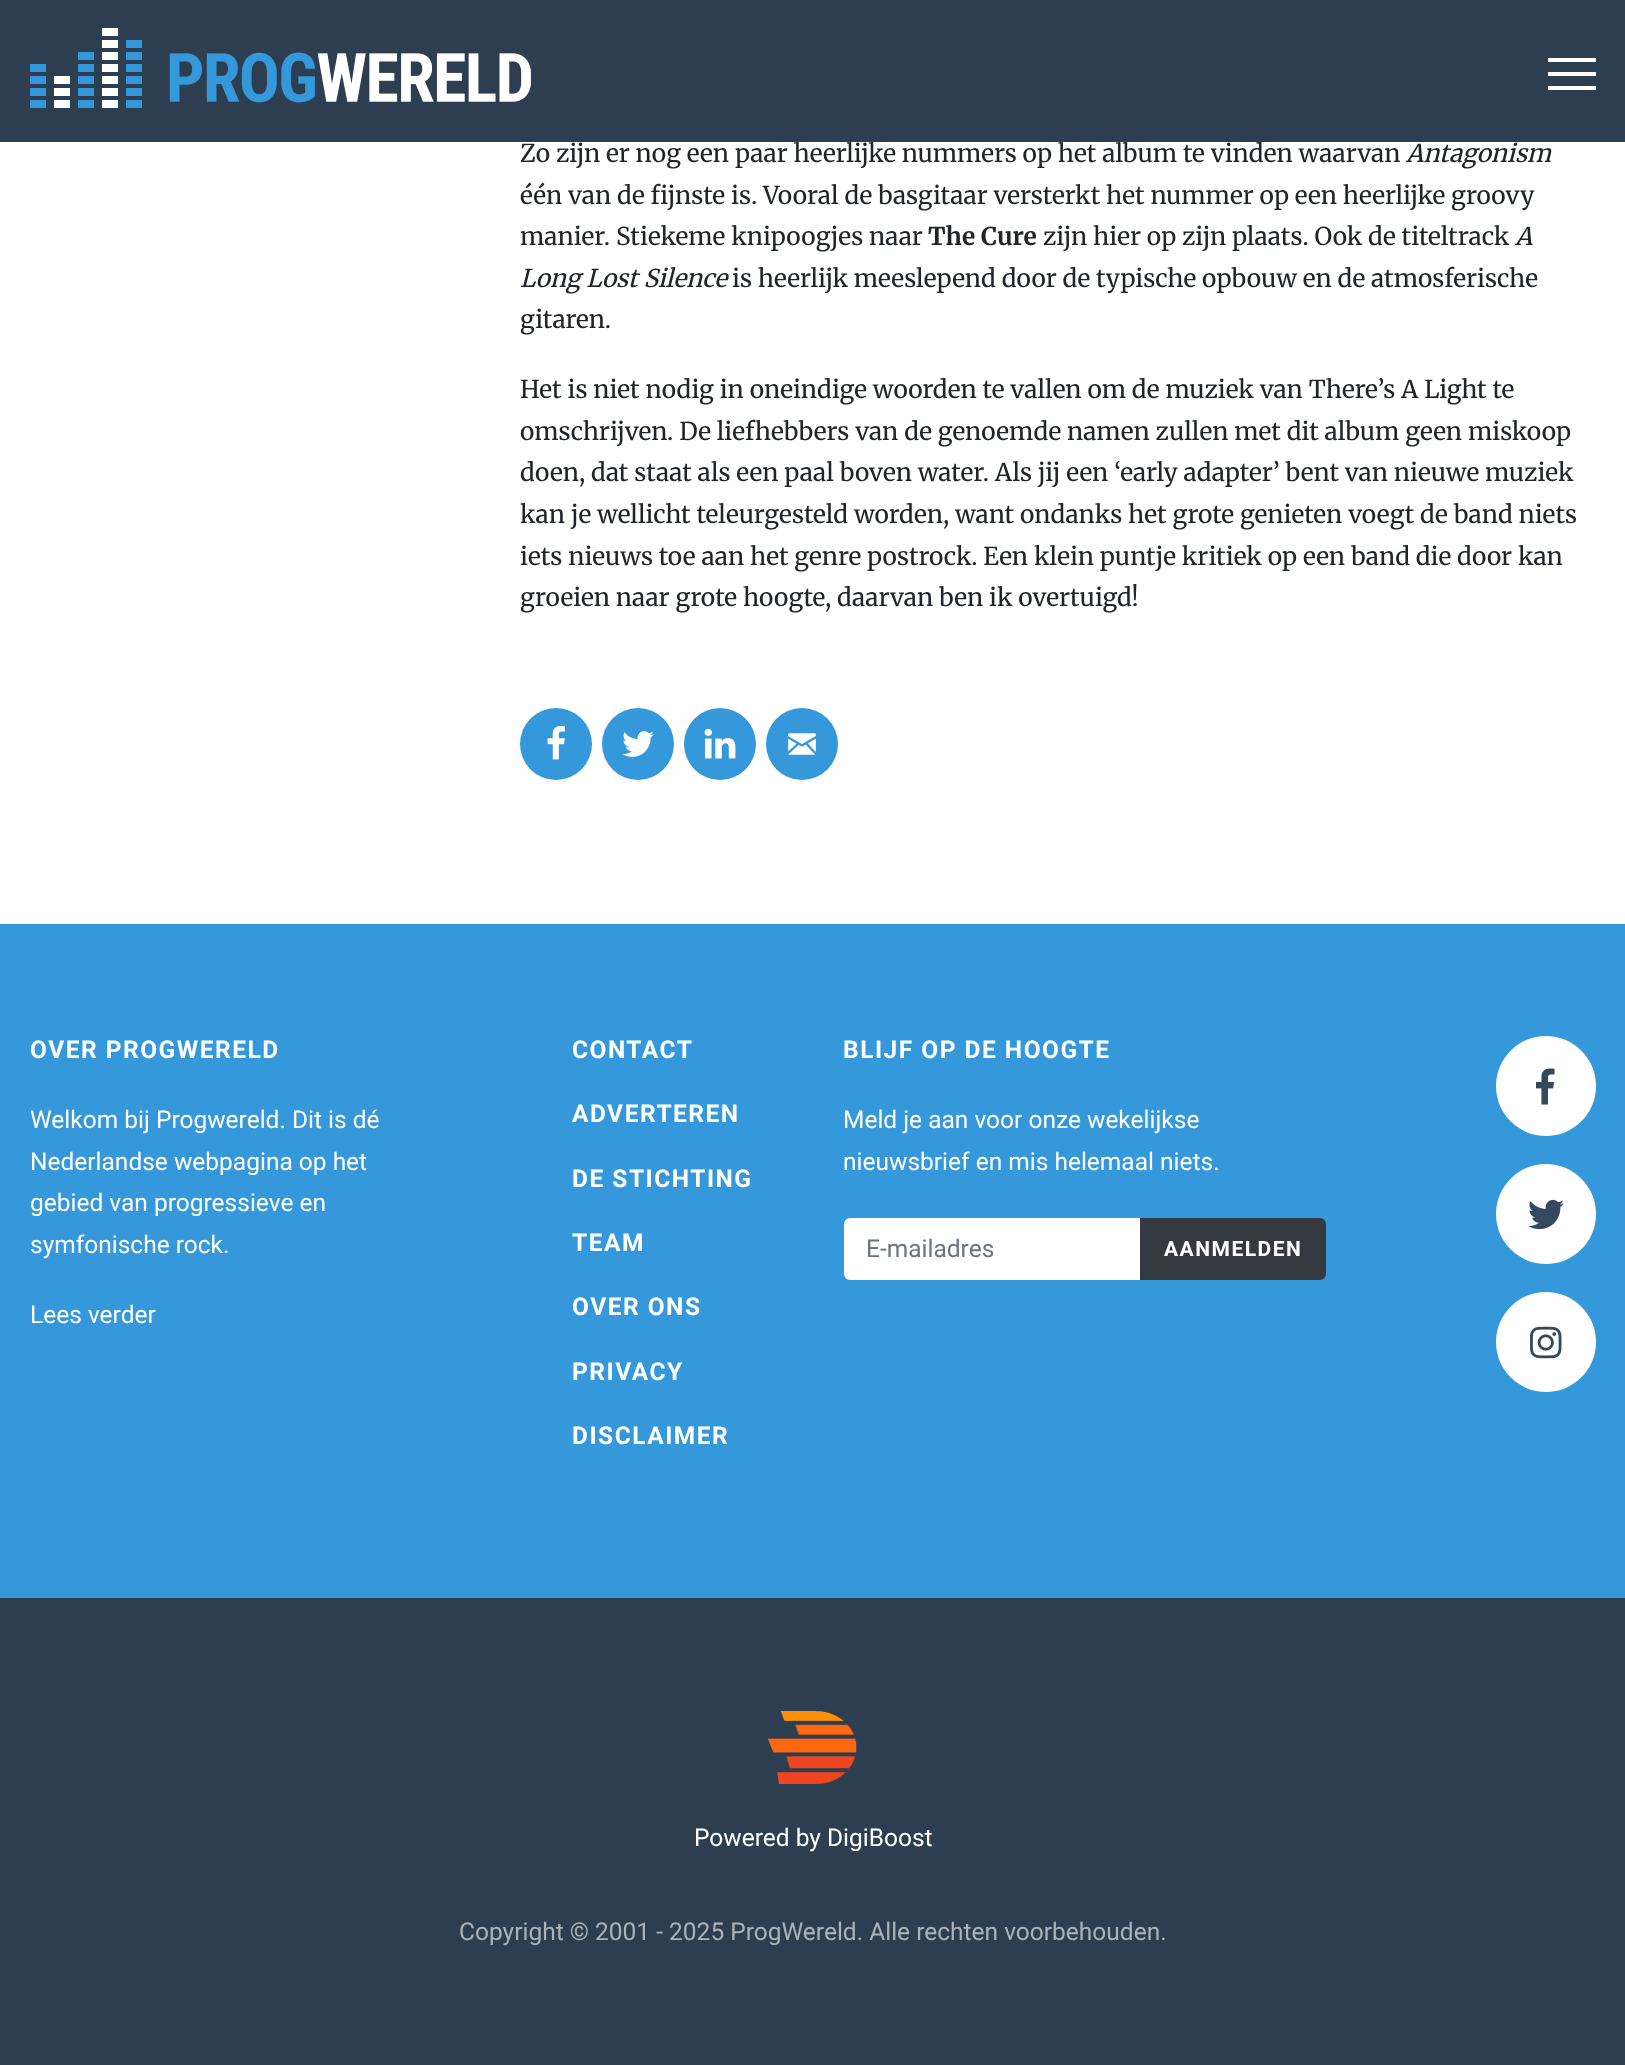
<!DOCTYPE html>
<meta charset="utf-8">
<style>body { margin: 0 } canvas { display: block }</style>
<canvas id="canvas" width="1625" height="2065"></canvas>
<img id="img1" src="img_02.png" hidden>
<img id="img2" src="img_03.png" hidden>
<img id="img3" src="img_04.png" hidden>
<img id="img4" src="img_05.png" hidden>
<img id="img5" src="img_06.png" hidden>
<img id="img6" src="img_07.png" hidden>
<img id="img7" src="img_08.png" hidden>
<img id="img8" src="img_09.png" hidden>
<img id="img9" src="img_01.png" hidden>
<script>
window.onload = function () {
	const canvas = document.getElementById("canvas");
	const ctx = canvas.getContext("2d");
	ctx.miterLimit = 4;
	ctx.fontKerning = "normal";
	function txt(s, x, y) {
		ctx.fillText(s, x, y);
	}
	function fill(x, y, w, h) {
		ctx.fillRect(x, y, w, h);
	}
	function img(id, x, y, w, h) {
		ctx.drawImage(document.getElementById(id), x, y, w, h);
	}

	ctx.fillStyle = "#FFFFFF";
	fill(0, 0, 1625, 2065);
	ctx.fillStyle = "#3498DB";
	ctx.beginPath();
	ctx.arc(556, 744, 36, 0, Math.PI * 2);
	ctx.fill();
	img("img1", 547, 726, 18, 34);
	ctx.beginPath();
	ctx.arc(638, 744, 36, 0, Math.PI * 2);
	ctx.fill();
	img("img2", 622, 731, 32, 26);
	ctx.beginPath();
	ctx.arc(720, 744, 36, 0, Math.PI * 2);
	ctx.fill();
	img("img3", 704, 729, 32, 30);
	ctx.beginPath();
	ctx.arc(802, 744, 36, 0, Math.PI * 2);
	ctx.fill();
	img("img4", 788, 733, 28, 22);
	fill(0, 924, 1625, 674);
	ctx.fillStyle = "#FFFFFF";
	ctx.beginPath();
	ctx.roundRect(845, 1219, 296, 60, [5, 0, 0, 5]);
	ctx.fill();
	ctx.strokeStyle = "#FFFFFF";
	ctx.lineWidth = 2;
	ctx.stroke();
	ctx.fillStyle = "#343A40";
	ctx.beginPath();
	ctx.roundRect(1141, 1219, 184, 60, [0, 5, 5, 0]);
	ctx.fill();
	ctx.strokeStyle = "#343A40";
	ctx.stroke();
	ctx.fillStyle = "#FFFFFF";
	ctx.beginPath();
	ctx.arc(1546, 1086, 50, 0, Math.PI * 2);
	ctx.fill();
	img("img5", 1536, 1068, 19, 37);
	ctx.beginPath();
	ctx.arc(1546, 1214, 50, 0, Math.PI * 2);
	ctx.fill();
	img("img6", 1528, 1199, 36, 31);
	ctx.beginPath();
	ctx.arc(1546, 1342, 50, 0, Math.PI * 2);
	ctx.fill();
	img("img7", 1530, 1326, 32, 33);
	ctx.fillStyle = "#2C3E50";
	fill(0, 1598, 1625, 467);
	img("img8", 768, 1711, 89, 73);
	ctx.font = "24.5px Merriweather";
	ctx.fillStyle = "#212529";
	txt("Zo zijn er nog een paar heerlijke nummers op het album te vinden waarvan", 520, 162);
	ctx.fillStyle = "#2C3E50";
	fill(0, 0, 1625, 142);
	ctx.fillStyle = "#FFFFFF";
	fill(1548, 58, 48, 4);
	fill(1548, 86, 48, 4);
	fill(1548, 72, 48, 4);
	img("img9", 30, 28, 501, 80);
	ctx.font = "italic 24.5px Merriweather";
	ctx.fillStyle = "#212529";
	txt("Antagonism", 1406, 162);
	ctx.font = "24.5px Merriweather";
	txt("één van de fijnste is. Vooral de basgitaar versterkt het nummer op een heerlijke groovy", 520, 204);
	txt("manier. Stiekeme knipoogjes naar", 520, 245);
	ctx.font = "bold 24.5px Merriweather";
	txt("The Cure", 928, 245);
	ctx.font = "24.5px Merriweather";
	txt("zijn hier op zijn plaats. Ook de titeltrack", 1043, 245);
	ctx.font = "italic 24.5px Merriweather";
	txt("A", 1515, 245);
	txt("Long Lost Silence", 520, 287);
	ctx.font = "24.5px Merriweather";
	txt("is heerlijk meeslepend door de typische opbouw en de atmosferische", 732, 287);
	txt("gitaren.", 520, 328);
	txt("Het is niet nodig in oneindige woorden te vallen om de muziek van There’s A Light te", 520, 398);
	txt("omschrijven. De liefhebbers van de genoemde namen zullen met dit album geen miskoop", 520, 440);
	txt("doen, dat staat als een paal boven water. Als jij een ‘early adapter’ bent van nieuwe muziek", 520, 481);
	txt("kan je wellicht teleurgesteld worden, want ondanks het grote genieten voegt de band niets", 520, 523);
	txt("iets nieuws toe aan het genre postrock. Een klein puntje kritiek op een band die door kan", 520, 565);
	txt("groeien naar grote hoogte, daarvan ben ik overtuigd!", 520, 606);
	ctx.letterSpacing = "1.5px";
	ctx.font = "bold 24.5px Roboto";
	ctx.fillStyle = "#FFFFFF";
	txt("OVER PROGWERELD", 30, 1058);
	ctx.letterSpacing = "0px";
	ctx.font = "24.5px Roboto";
	txt("Welkom bij Progwereld. Dit is dé", 30, 1128);
	txt("Nederlandse webpagina op het", 30, 1170);
	txt("gebied van progressieve en", 30, 1211);
	txt("symfonische rock.", 30, 1253);
	txt("Lees verder", 30, 1323);
	ctx.letterSpacing = "1.5px";
	ctx.font = "bold 24.5px Roboto";
	txt("CONTACT", 572, 1058);
	txt("ADVERTEREN", 572, 1122);
	txt("DE STICHTING", 572, 1187);
	txt("TEAM", 572, 1251);
	txt("OVER ONS", 572, 1315);
	txt("PRIVACY", 572, 1380);
	txt("DISCLAIMER", 572, 1444);
	txt("BLIJF OP DE HOOGTE", 843, 1058);
	ctx.letterSpacing = "0px";
	ctx.font = "24.5px Roboto";
	txt("Meld je aan voor onze wekelijkse", 843, 1128);
	txt("nieuwsbrief en mis helemaal niets.", 843, 1170);
	ctx.fillStyle = "#6C757D";
	txt("E-mailadres", 866, 1257);
	ctx.letterSpacing = "1.5px";
	ctx.font = "bold 21px Roboto";
	ctx.fillStyle = "#FFFFFF";
	txt("AANMELDEN", 1164, 1256);
	ctx.letterSpacing = "0px";
	ctx.font = "24.5px Roboto";
	txt("Powered by DigiBoost", 694, 1846);
	ctx.fillStyle = "#ABB2B9";
	txt("Copyright © 2001 - 2025 ProgWereld. Alle rechten voorbehouden.", 459, 1940);
};
</script>
